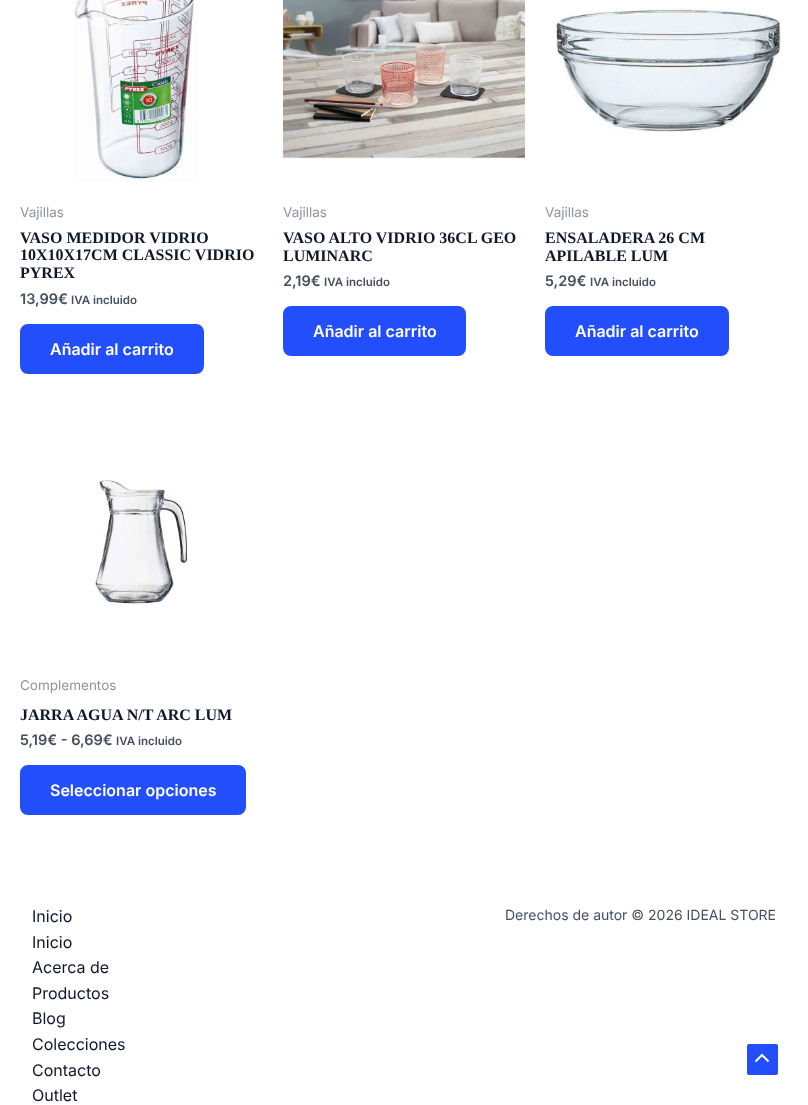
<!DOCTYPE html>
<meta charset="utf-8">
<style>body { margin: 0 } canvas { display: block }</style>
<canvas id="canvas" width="808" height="1105"></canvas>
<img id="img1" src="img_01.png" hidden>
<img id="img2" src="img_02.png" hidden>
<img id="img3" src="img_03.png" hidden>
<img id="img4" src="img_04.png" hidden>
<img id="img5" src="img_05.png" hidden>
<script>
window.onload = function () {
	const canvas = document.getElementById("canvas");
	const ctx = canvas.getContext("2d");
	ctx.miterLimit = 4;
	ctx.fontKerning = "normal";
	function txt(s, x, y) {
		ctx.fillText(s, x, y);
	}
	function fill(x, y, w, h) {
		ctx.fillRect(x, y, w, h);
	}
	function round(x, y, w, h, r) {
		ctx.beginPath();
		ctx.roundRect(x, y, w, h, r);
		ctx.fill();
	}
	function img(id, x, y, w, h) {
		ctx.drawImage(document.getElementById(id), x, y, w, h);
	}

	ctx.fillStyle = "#FFFFFF";
	fill(0, 0, 808, 1105);
	img("img1", 74, 0, 124, 182);
	ctx.fillStyle = "#234EFB";
	ctx.beginPath();
	ctx.roundRect(21, 325, 182, 48, 7);
	ctx.fill();
	ctx.strokeStyle = "#234EFB";
	ctx.lineWidth = 2;
	ctx.stroke();
	img("img2", 283, 0, 242, 160);
	ctx.beginPath();
	ctx.roundRect(284, 307, 181, 48, 7);
	ctx.fill();
	ctx.stroke();
	img("img3", 556, 8, 226, 124);
	ctx.beginPath();
	ctx.roundRect(546, 307, 182, 48, 7);
	ctx.fill();
	ctx.stroke();
	img("img4", 95, 480, 93, 125);
	ctx.beginPath();
	ctx.roundRect(21, 766, 224, 48, 7);
	ctx.fill();
	ctx.stroke();
	round(747, 1044, 31, 31, 2);
	img("img5", 755, 1053, 15, 10);
	ctx.font = "13.5px Inter";
	ctx.fillStyle = "#8F959E";
	txt("Vajillas", 20, 217);
	ctx.font = "bold 16px Liberation Serif";
	ctx.fillStyle = "#0F172A";
	txt("VASO MEDIDOR VIDRIO", 20, 243);
	txt("10X10X17CM CLASSIC VIDRIO", 20, 260);
	txt("PYREX", 20, 278);
	ctx.font = "600 14.5px Inter";
	ctx.fillStyle = "#454F5E";
	txt("13,99€", 20, 304);
	ctx.font = "600 11.5px Inter";
	txt("IVA incluido", 71, 304);
	ctx.font = "600 16px Inter";
	ctx.fillStyle = "#FFFFFF";
	txt("Añadir al carrito", 50, 355);
	ctx.font = "13.5px Inter";
	ctx.fillStyle = "#8F959E";
	txt("Vajillas", 283, 217);
	ctx.font = "bold 16px Liberation Serif";
	ctx.fillStyle = "#0F172A";
	txt("VASO ALTO VIDRIO 36CL GEO", 283, 243);
	txt("LUMINARC", 283, 261);
	ctx.font = "600 14.5px Inter";
	ctx.fillStyle = "#454F5E";
	txt("2,19€", 283, 286);
	ctx.font = "600 11.5px Inter";
	txt("IVA incluido", 324, 286);
	ctx.font = "600 16px Inter";
	ctx.fillStyle = "#FFFFFF";
	txt("Añadir al carrito", 313, 337);
	ctx.font = "13.5px Inter";
	ctx.fillStyle = "#8F959E";
	txt("Vajillas", 545, 217);
	ctx.font = "bold 16px Liberation Serif";
	ctx.fillStyle = "#0F172A";
	txt("ENSALADERA 26 CM", 545, 243);
	txt("APILABLE LUM", 545, 261);
	ctx.font = "600 14.5px Inter";
	ctx.fillStyle = "#454F5E";
	txt("5,29€", 545, 286);
	ctx.font = "600 11.5px Inter";
	txt("IVA incluido", 590, 286);
	ctx.font = "600 16px Inter";
	ctx.fillStyle = "#FFFFFF";
	txt("Añadir al carrito", 575, 337);
	ctx.font = "13.5px Inter";
	ctx.fillStyle = "#8F959E";
	txt("Complementos", 20, 690);
	ctx.font = "bold 16px Liberation Serif";
	ctx.fillStyle = "#0F172A";
	txt("JARRA AGUA N/T ARC LUM", 20, 720);
	ctx.font = "600 14.5px Inter";
	ctx.fillStyle = "#454F5E";
	txt("5,19€ - 6,69€", 20, 745);
	ctx.font = "600 11.5px Inter";
	txt("IVA incluido", 116, 745);
	ctx.font = "600 16px Inter";
	ctx.fillStyle = "#FFFFFF";
	txt("Seleccionar opciones", 50, 796);
	ctx.font = "16px Inter";
	ctx.fillStyle = "#0F172A";
	txt("Inicio", 32, 922);
	txt("Inicio", 32, 948);
	txt("Acerca de", 32, 973);
	txt("Productos", 32, 999);
	txt("Blog", 32, 1024);
	txt("Colecciones", 32, 1050);
	txt("Contacto", 32, 1076);
	txt("Outlet", 32, 1101);
	ctx.font = "14px Inter";
	ctx.fillStyle = "#454F5E";
	txt("Derechos de autor © 2026 IDEAL STORE", 505, 920);
};
</script>
